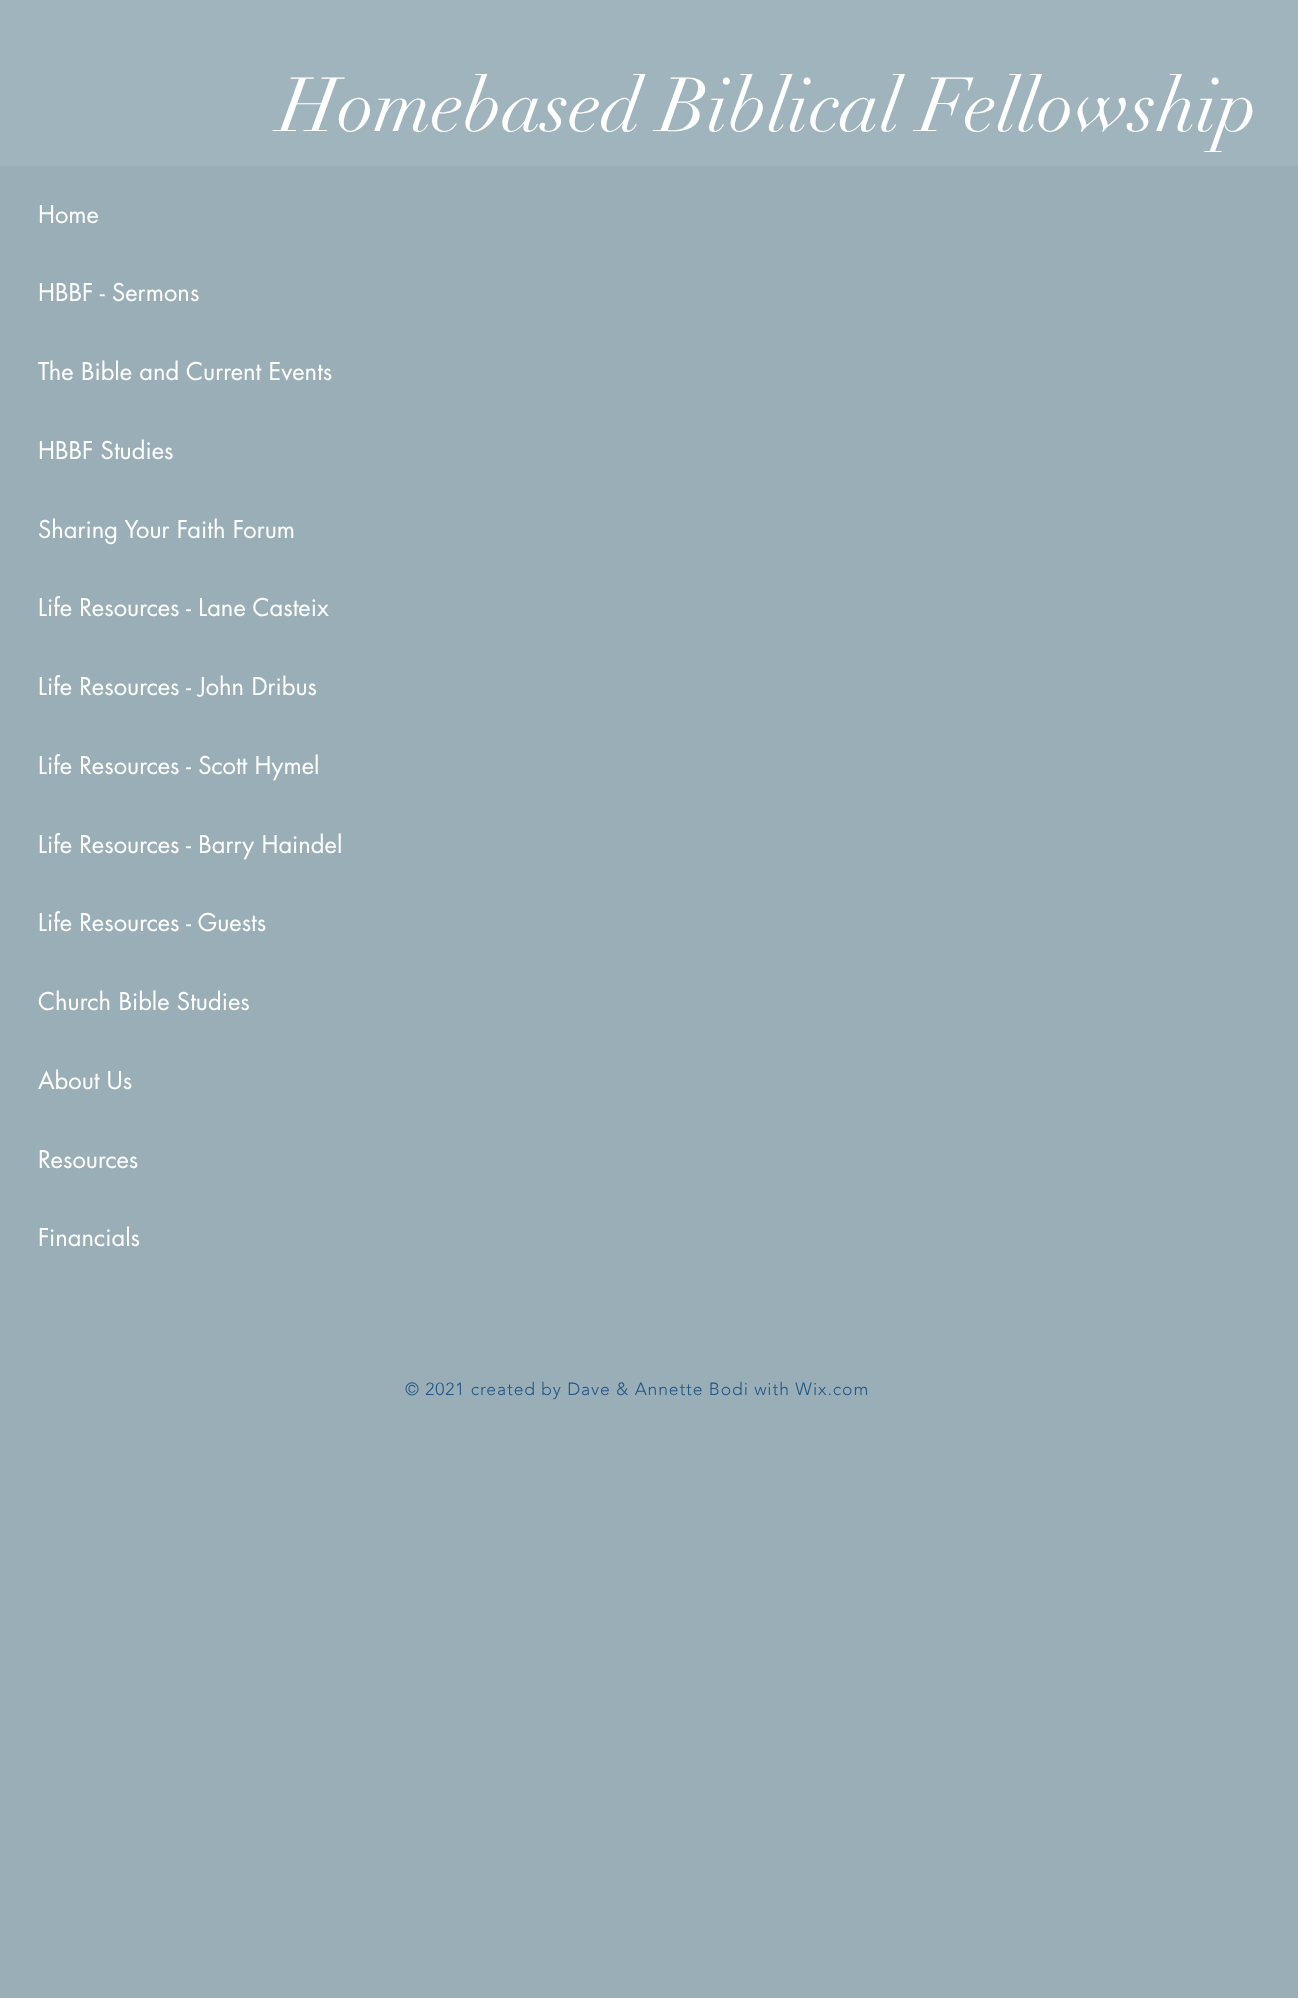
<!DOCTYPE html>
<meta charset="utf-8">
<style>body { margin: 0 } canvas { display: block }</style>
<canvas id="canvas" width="1298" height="1998"></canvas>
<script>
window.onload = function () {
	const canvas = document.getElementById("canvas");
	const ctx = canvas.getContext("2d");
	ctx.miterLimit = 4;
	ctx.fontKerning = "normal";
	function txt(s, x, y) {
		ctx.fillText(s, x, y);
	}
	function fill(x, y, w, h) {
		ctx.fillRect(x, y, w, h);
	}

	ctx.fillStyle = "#9AAEB8";
	fill(0, 0, 1298, 1998);
	ctx.fillStyle = "#A0B4BD";
	fill(0, 0, 1298, 166);
	ctx.font = "75px didot";
	ctx.fillStyle = "#FFFFFF";
	txt("Homebased Biblical Fellowship", 279, 131);
	ctx.font = "23.75px futura";
	txt("Home", 38, 223);
	txt("HBBF - Sermons", 38, 301);
	txt("The Bible and Current Events", 38, 380);
	txt("HBBF Studies", 38, 459);
	txt("Sharing Your Faith Forum", 38, 538);
	txt("Life Resources - Lane Casteix", 38, 616);
	txt("Life Resources - John Dribus", 38, 695);
	txt("Life Resources - Scott Hymel", 38, 774);
	txt("Life Resources - Barry Haindel", 38, 853);
	txt("Life Resources - Guests", 38, 931);
	txt("Church Bible Studies", 38, 1010);
	txt("About Us", 38, 1089);
	txt("Resources", 38, 1168);
	txt("Financials", 38, 1246);
	ctx.letterSpacing = "0.88px";
	ctx.font = "300 17.5px 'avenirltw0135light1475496'";
	ctx.fillStyle = "#205685";
	txt("© 2021 created by Dave & Annette Bodi with Wix.com", 405, 1395);
};
</script>
